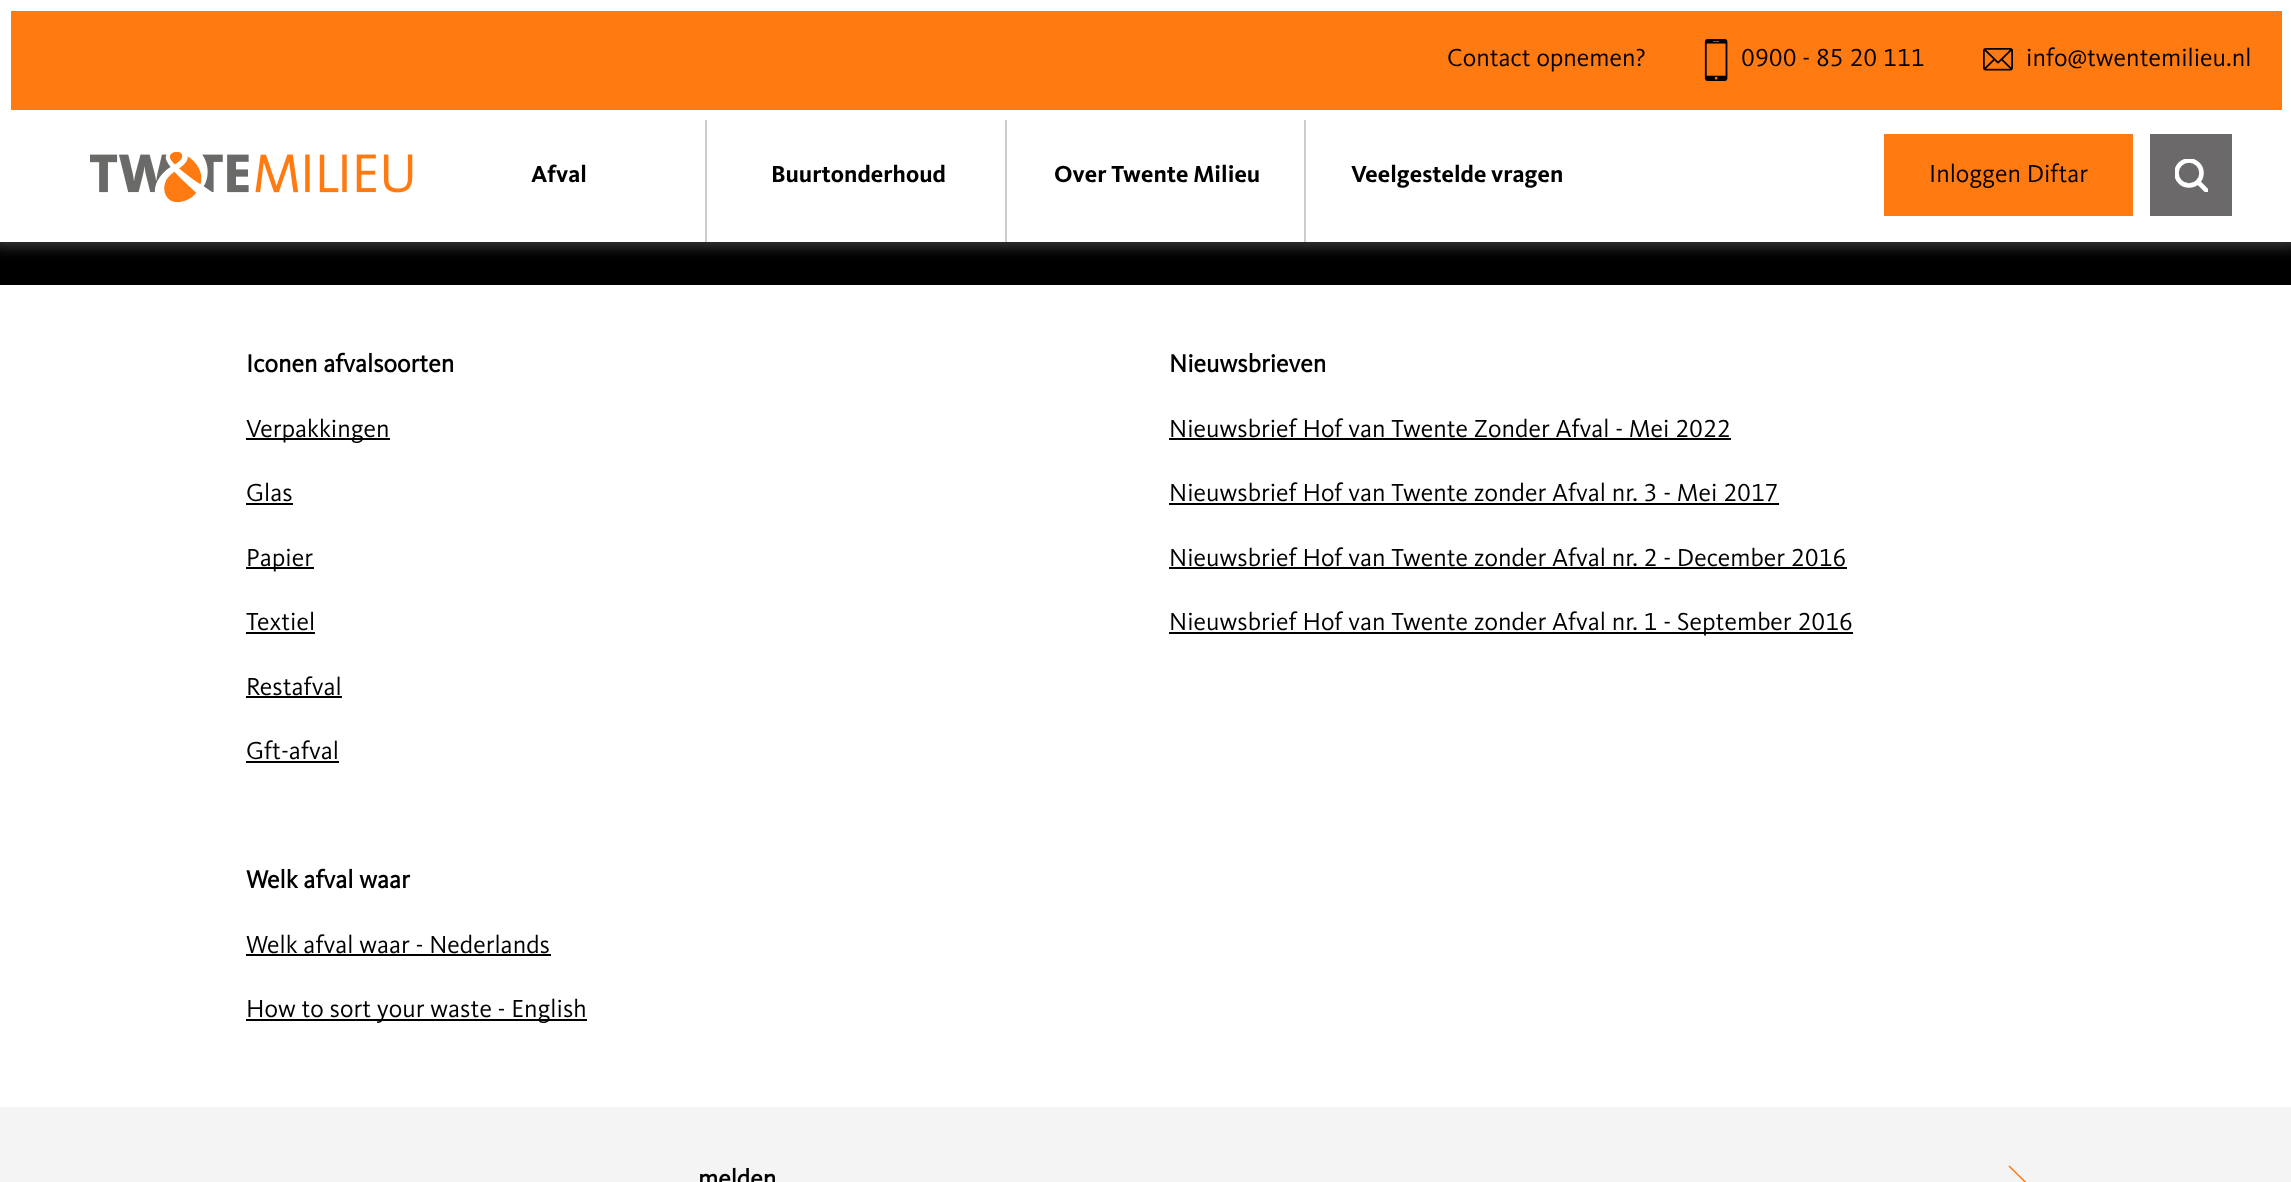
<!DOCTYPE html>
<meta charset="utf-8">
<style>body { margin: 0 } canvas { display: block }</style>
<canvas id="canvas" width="2291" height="1182"></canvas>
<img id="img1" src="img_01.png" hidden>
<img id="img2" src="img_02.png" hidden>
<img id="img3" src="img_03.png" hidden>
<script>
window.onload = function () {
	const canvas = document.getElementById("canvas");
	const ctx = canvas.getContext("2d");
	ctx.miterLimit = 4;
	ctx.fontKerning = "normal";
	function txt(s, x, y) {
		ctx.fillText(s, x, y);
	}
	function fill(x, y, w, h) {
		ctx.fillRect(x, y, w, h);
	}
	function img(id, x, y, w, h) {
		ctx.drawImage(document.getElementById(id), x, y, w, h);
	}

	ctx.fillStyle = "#FFFFFF";
	fill(0, 0, 2291, 1182);
	ctx.fillStyle = "#000000";
	fill(0, 242, 2291, 43);
	ctx.fillStyle = "rgba(100, 100, 100, 0.4)";
	ctx.filter = "blur(7.5px)";
	ctx.beginPath();
	ctx.rect(-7, 93, 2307, 152);
	ctx.fill();
	ctx.filter = "none";
	ctx.filter = "blur(7.5px)";
	ctx.beginPath();
	ctx.rect(-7, 95, 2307, 150);
	ctx.fill();
	ctx.filter = "none";
	ctx.strokeStyle = "#FFFFFF";
	ctx.lineWidth = 11;
	ctx.strokeRect(5.5, 5.5, 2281, 109);
	ctx.fillStyle = "#FF7A11";
	fill(11, 11, 2271, 99);
	img("img1", 1704, 39, 24, 42);
	img("img2", 1983, 48, 30, 23);
	ctx.fillStyle = "#FFFFFF";
	fill(0, 120, 2291, 122);
	img("img3", 90, 152, 323, 51);
	ctx.fillStyle = "#CCCCCC";
	fill(705, 120, 2, 122);
	fill(1005, 120, 2, 122);
	fill(1304, 120, 2, 122);
	ctx.fillStyle = "#FF7A11";
	fill(1884, 134, 249, 82);
	ctx.fillStyle = "#6B696A";
	fill(2150, 134, 82, 82);
	ctx.save();
	ctx.beginPath();
	ctx.rect(2175, 159, 33, 33);
	ctx.clip();
	ctx.beginPath();
	ctx.arc(2189, 173, 12.5, 0, Math.PI * 2);
	ctx.lineWidth = 4.6;
	ctx.stroke();
	ctx.beginPath();
	ctx.moveTo(2198, 182);
	ctx.lineTo(2206.5, 190.5);
	ctx.lineCap = "round";
	ctx.lineJoin = "round";
	ctx.stroke();
	ctx.restore();
	ctx.fillStyle = "#000000";
	fill(246, 438, 144, 2);
	fill(246, 503, 47, 2);
	fill(246, 567, 68, 2);
	fill(246, 632, 69, 2);
	fill(246, 696, 96, 2);
	fill(246, 761, 93, 2);
	fill(246, 954, 305, 2);
	fill(246, 1019, 341, 2);
	fill(1169, 438, 562, 2);
	fill(1169, 503, 610, 2);
	fill(1169, 567, 678, 2);
	fill(1169, 632, 684, 2);
	ctx.fillStyle = "#F4F4F4";
	fill(0, 1107, 2291, 75);
	ctx.beginPath();
	ctx.moveTo(2009.5, 1166.5);
	ctx.lineTo(2044, 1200.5);
	ctx.strokeStyle = "#FF7A11";
	ctx.lineWidth = 1.5;
	ctx.lineCap = "square";
	ctx.stroke();
	ctx.font = "25.5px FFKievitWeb";
	ctx.fillStyle = "#000000";
	txt("Contact opnemen?", 1447, 66);
	txt("0900 - 85 20 111", 1741, 66);
	txt("info@twentemilieu.nl", 2026, 66);
	ctx.font = "24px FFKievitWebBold";
	txt("Afval", 531, 182);
	txt("Buurtonderhoud", 771, 182);
	txt("Over Twente Milieu", 1054, 182);
	txt("Veelgestelde vragen", 1351, 182);
	ctx.font = "25.5px FFKievitWeb";
	txt("Inloggen Diftar", 1929, 182);
	ctx.font = "bold 25.5px FFKievitWeb";
	txt("Iconen afvalsoorten", 246, 372);
	ctx.font = "25.5px FFKievitWeb";
	txt("Verpakkingen", 246, 437);
	txt("Glas", 246, 501);
	txt("Papier", 246, 566);
	txt("Textiel", 246, 630);
	txt("Restafval", 246, 695);
	txt("Gft-afval", 246, 759);
	ctx.font = "bold 25.5px FFKievitWeb";
	txt("Welk afval waar", 246, 888);
	ctx.font = "25.5px FFKievitWeb";
	txt("Welk afval waar - Nederlands", 246, 953);
	txt("How to sort your waste - English", 246, 1017);
	ctx.font = "bold 25.5px FFKievitWeb";
	txt("Nieuwsbrieven", 1169, 372);
	ctx.font = "25.5px FFKievitWeb";
	txt("Nieuwsbrief Hof van Twente Zonder Afval - Mei 2022", 1169, 437);
	txt("Nieuwsbrief Hof van Twente zonder Afval nr. 3 - Mei 2017", 1169, 501);
	txt("Nieuwsbrief Hof van Twente zonder Afval nr. 2 - December 2016", 1169, 566);
	txt("Nieuwsbrief Hof van Twente zonder Afval nr. 1 - September 2016", 1169, 630);
	ctx.font = "bold 25.5px FFKievitWeb";
	txt("melden", 698, 1187);
};
</script>
